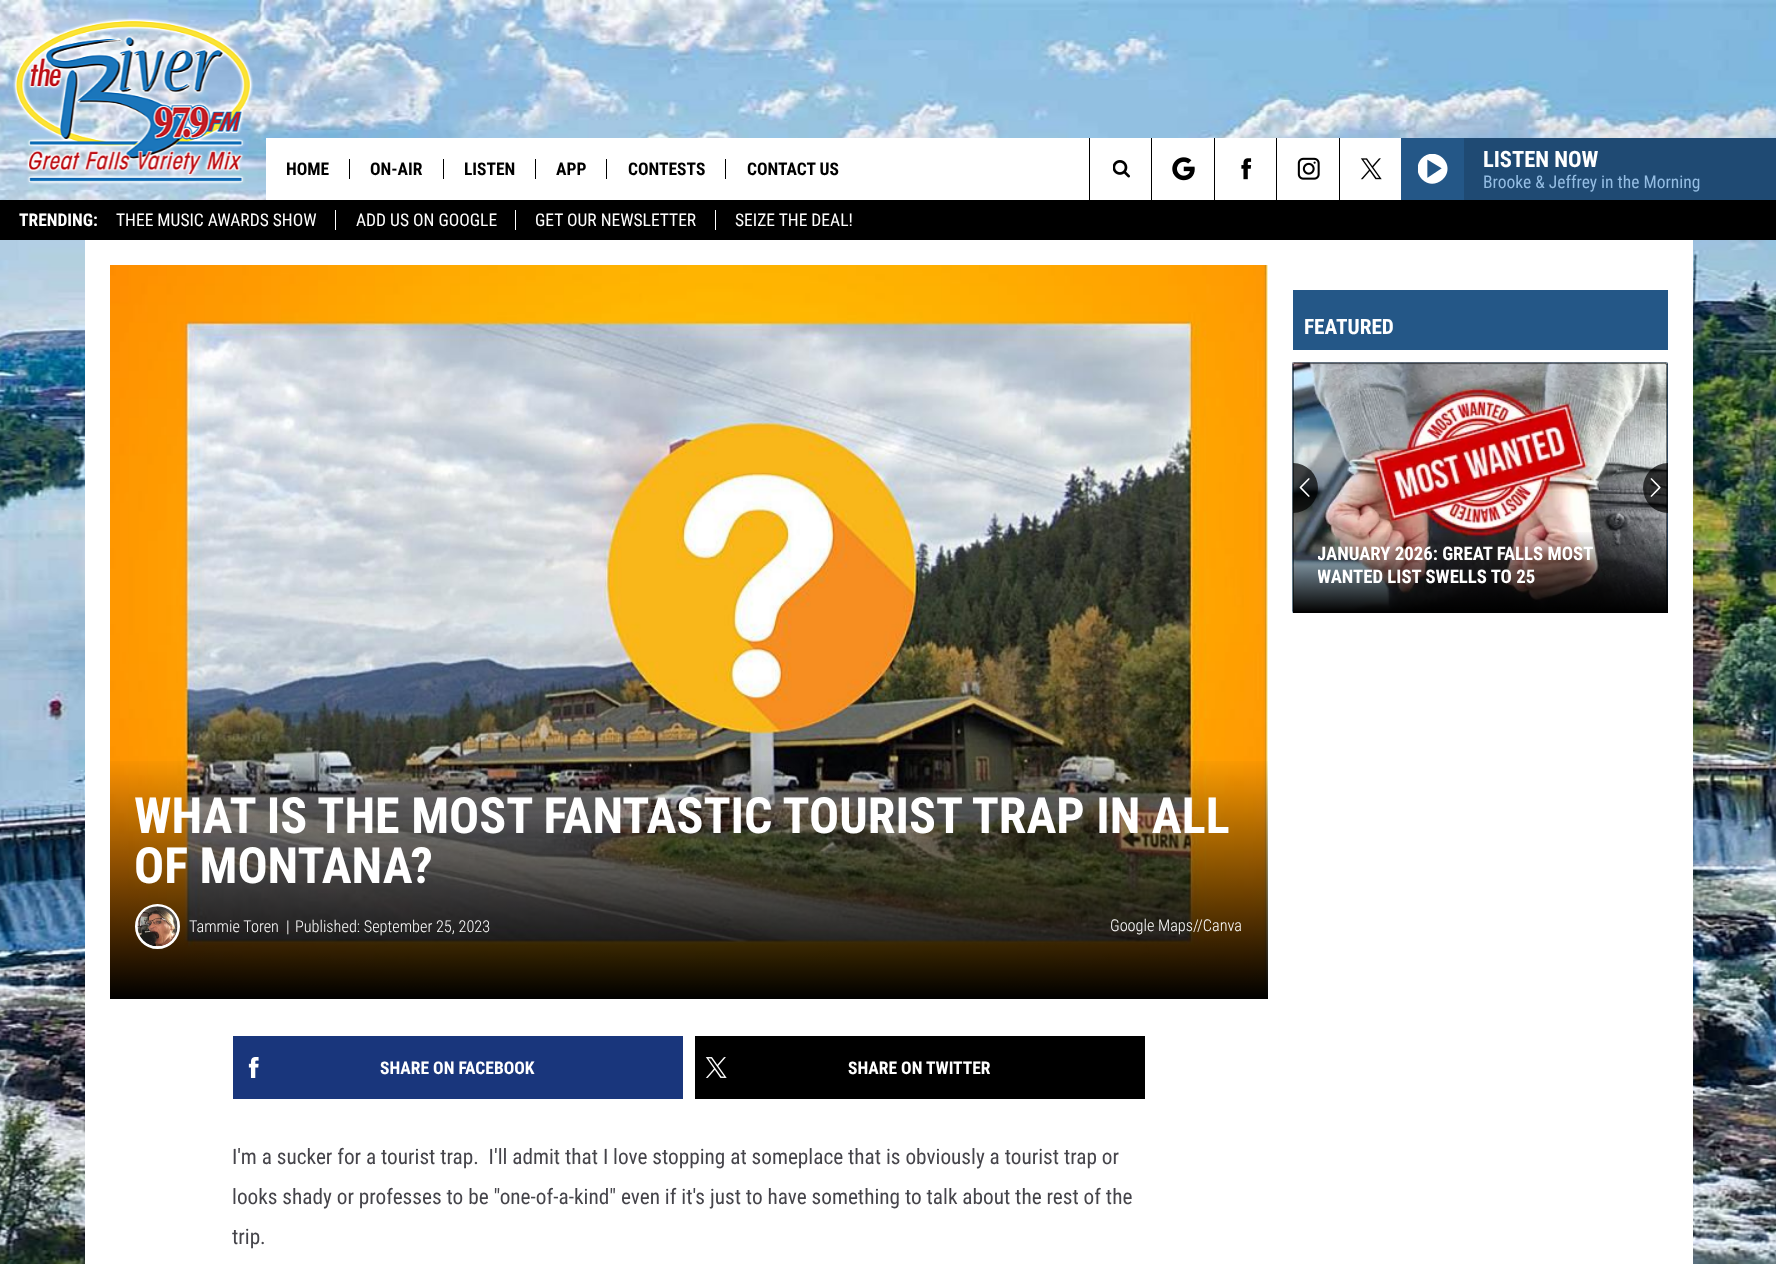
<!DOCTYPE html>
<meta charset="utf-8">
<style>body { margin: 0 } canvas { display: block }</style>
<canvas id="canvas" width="1776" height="1264"></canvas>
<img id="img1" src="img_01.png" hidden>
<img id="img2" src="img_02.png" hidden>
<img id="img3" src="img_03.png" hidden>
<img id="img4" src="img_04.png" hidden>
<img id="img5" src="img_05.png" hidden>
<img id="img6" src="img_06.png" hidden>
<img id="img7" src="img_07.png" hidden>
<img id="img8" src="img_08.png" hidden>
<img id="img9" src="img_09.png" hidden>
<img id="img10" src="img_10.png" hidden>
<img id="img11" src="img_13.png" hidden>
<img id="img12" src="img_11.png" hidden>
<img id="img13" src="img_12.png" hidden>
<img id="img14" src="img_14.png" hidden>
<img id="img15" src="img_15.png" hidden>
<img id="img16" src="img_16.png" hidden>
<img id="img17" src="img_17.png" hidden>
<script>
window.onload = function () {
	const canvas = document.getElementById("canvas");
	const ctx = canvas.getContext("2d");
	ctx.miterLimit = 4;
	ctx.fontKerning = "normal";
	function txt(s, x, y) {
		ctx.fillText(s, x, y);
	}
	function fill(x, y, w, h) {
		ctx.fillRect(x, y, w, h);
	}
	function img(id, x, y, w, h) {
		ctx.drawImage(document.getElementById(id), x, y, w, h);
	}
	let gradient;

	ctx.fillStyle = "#FFFFFF";
	fill(0, 0, 1776, 1264);
	img("img1", 0, 240, 1776, 1024);
	img("img2", 0, 0, 1776, 200);
	img("img3", 13, 18, 241, 167);
	fill(266, 138, 1135, 62);
	ctx.fillStyle = "#000000";
	fill(349, 159, 1, 20);
	fill(443, 159, 1, 20);
	fill(535, 159, 1, 20);
	fill(606, 159, 1, 20);
	fill(725, 159, 1, 20);
	fill(1089, 138, 1, 62);
	img("img4", 1113, 160, 17, 18);
	fill(1151, 138, 1, 62);
	img("img5", 1172, 157, 23, 24);
	fill(1214, 138, 1, 62);
	img("img6", 1241, 158, 11, 22);
	fill(1276, 138, 1, 62);
	img("img7", 1297, 157, 23, 23);
	fill(1339, 138, 1, 62);
	img("img8", 1360, 158, 22, 22);
	ctx.fillStyle = "#245787";
	fill(1401, 138, 63, 62);
	img("img9", 1418, 154, 30, 30);
	ctx.fillStyle = "#1F4A73";
	fill(1464, 138, 312, 62);
	ctx.fillStyle = "#000000";
	fill(0, 200, 1776, 40);
	ctx.fillStyle = "#FFFFFF";
	fill(335, 210, 1, 20);
	fill(515, 210, 1, 20);
	fill(715, 210, 1, 20);
	fill(85, 240, 1608, 1024);
	ctx.fillStyle = "#245787";
	fill(1293, 290, 375, 60);
	fill(1293, 363, 375, 250);
	img("img10", 1292, 362, 376, 251);
	img("img11", 1292, 362, 376, 251);
	ctx.fillStyle = "rgba(0, 0, 0, 0.7)";
	ctx.beginPath();
	ctx.roundRect(1293, 463, 25, 50, [0, 25, 25, 0]);
	ctx.fill();
	img("img12", 1299, 478, 11, 19);
	ctx.beginPath();
	ctx.roundRect(1643, 463, 25, 50, [25, 0, 0, 25]);
	ctx.fill();
	img("img13", 1650, 478, 11, 19);
	gradient = ctx.createLinearGradient(1480, 530, 1480, 613);
	gradient.addColorStop(0, "rgba(0, 0, 0, 0)");
	gradient.addColorStop(1, "#000000");
	ctx.fillStyle = gradient;
	fill(1293, 532, 375, 81);
	img("img14", 110, 265, 1158, 733);
	gradient = ctx.createLinearGradient(689, 756, 689, 999);
	gradient.addColorStop(0, "rgba(0, 0, 0, 0)");
	gradient.addColorStop(1, "#000000");
	ctx.fillStyle = gradient;
	fill(110, 761, 1158, 238);
	ctx.beginPath();
	ctx.arc(157.5, 926.5, 21, 0, Math.PI * 2);
	ctx.strokeStyle = "#FFFFFF";
	ctx.lineWidth = 3;
	ctx.stroke();
	img("img15", 137, 906, 41, 41);
	ctx.fillStyle = "#19367C";
	fill(233, 1036, 450, 63);
	img("img16", 248, 1057, 11, 21);
	ctx.fillStyle = "#000000";
	fill(695, 1036, 450, 63);
	img("img17", 705, 1057, 22, 21);
	ctx.font = "bold 17.5px Roboto Condensed";
	txt("HOME", 286, 175);
	txt("ON-AIR", 370, 175);
	txt("LISTEN", 464, 175);
	txt("APP", 556, 175);
	txt("CONTESTS", 628, 175);
	txt("CONTACT US", 747, 175);
	ctx.font = "bold 22.5px Roboto Condensed";
	ctx.fillStyle = "#FFFFFF";
	txt("LISTEN NOW", 1483, 167);
	ctx.font = "17.5px Roboto Condensed";
	ctx.fillStyle = "#94BDE3";
	txt("Brooke & Jeffrey in the Morning", 1483, 188);
	ctx.font = "bold 17.5px Roboto Condensed";
	ctx.fillStyle = "#FFFFFF";
	txt("TRENDING:", 19, 226);
	ctx.font = "17.5px Roboto Condensed";
	txt("THEE MUSIC AWARDS SHOW", 116, 226);
	txt("ADD US ON GOOGLE", 356, 226);
	txt("GET OUR NEWSLETTER", 535, 226);
	txt("SEIZE THE DEAL!", 735, 226);
	ctx.font = "bold 21.25px Roboto Condensed";
	txt("FEATURED", 1304, 334);
	ctx.save();
	ctx.beginPath();
	ctx.rect(1318, 543, 325, 45);
	ctx.clip();
	ctx.font = "bold 18.75px Roboto Condensed";
	txt("JANUARY 2026: GREAT FALLS MOST", 1317, 560);
	txt("WANTED LIST SWELLS TO 25", 1317, 583);
	ctx.restore();
	ctx.font = "bold 50px Roboto Condensed";
	txt("WHAT IS THE MOST FANTASTIC TOURIST TRAP IN ALL", 134, 833);
	txt("OF MONTANA?", 134, 883);
	ctx.font = "300 16.25px Roboto Condensed";
	txt("Tammie Toren", 189, 932);
	txt("|", 286, 932);
	txt("Published: September 25, 2023", 295, 932);
	txt("Google Maps//Canva", 1110, 931);
	ctx.font = "bold 17.5px Roboto Condensed";
	txt("SHARE ON FACEBOOK", 380, 1074);
	txt("SHARE ON TWITTER", 848, 1074);
	ctx.font = "21.25px Roboto Condensed";
	ctx.fillStyle = "#45444A";
	txt("I'm a sucker for a tourist trap.  I'll admit that I love stopping at someplace that is obviously a tourist trap or", 232, 1164);
	txt("looks shady or professes to be \"one-of-a-kind\" even if it's just to have something to talk about the rest of the", 232, 1204);
	txt("trip.", 232, 1244);
};
</script>
